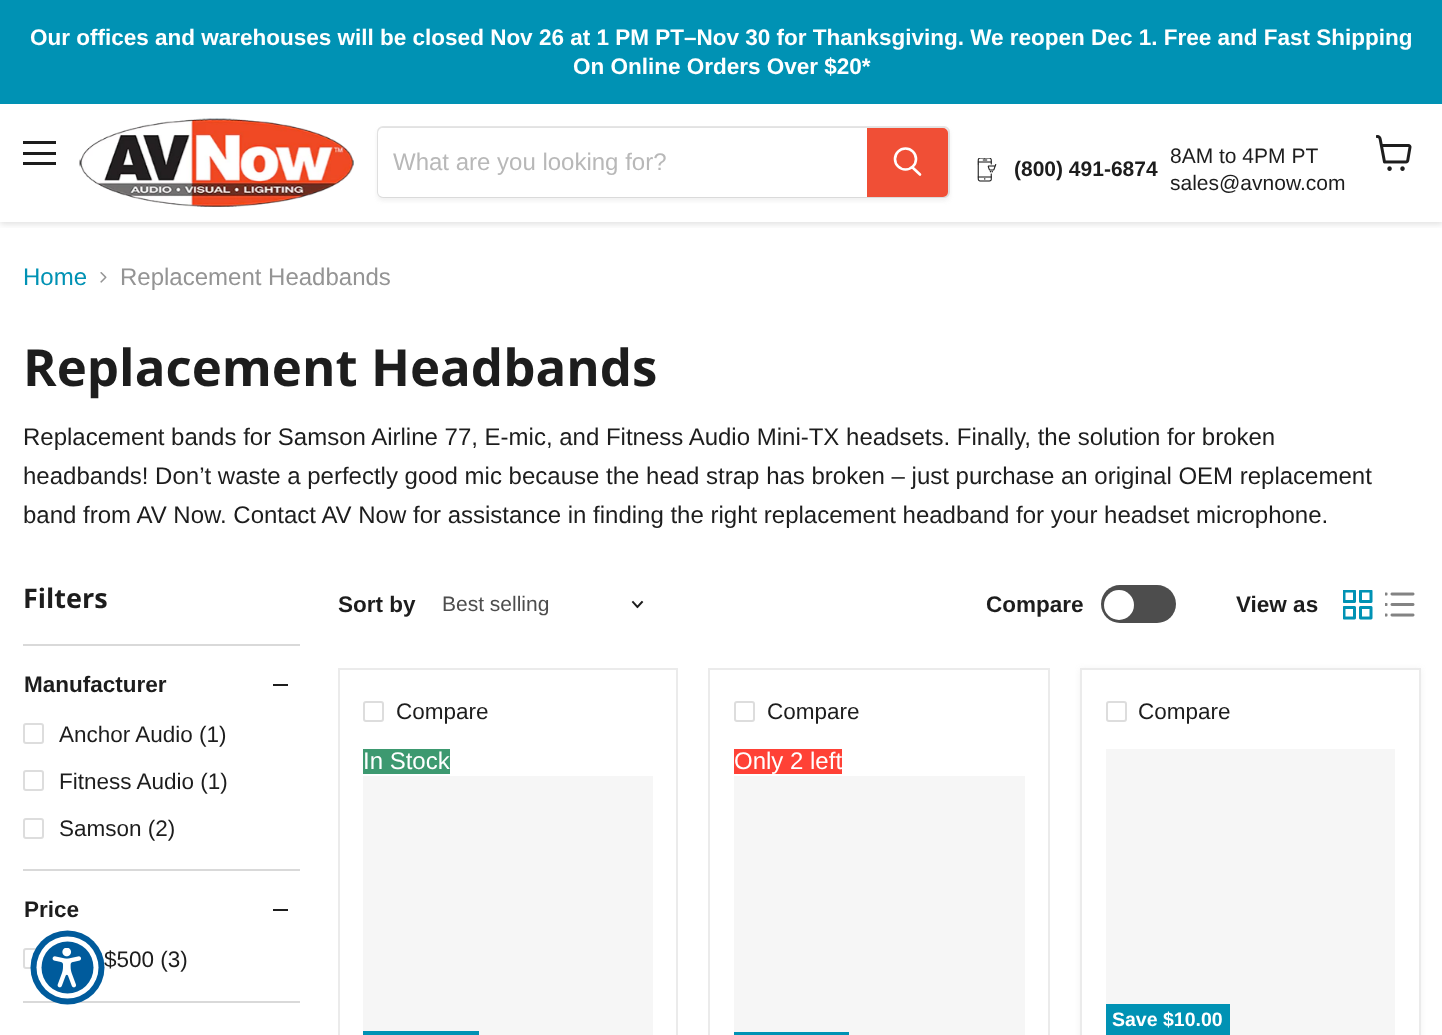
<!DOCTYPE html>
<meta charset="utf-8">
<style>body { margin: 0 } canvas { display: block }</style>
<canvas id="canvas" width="1442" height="1035"></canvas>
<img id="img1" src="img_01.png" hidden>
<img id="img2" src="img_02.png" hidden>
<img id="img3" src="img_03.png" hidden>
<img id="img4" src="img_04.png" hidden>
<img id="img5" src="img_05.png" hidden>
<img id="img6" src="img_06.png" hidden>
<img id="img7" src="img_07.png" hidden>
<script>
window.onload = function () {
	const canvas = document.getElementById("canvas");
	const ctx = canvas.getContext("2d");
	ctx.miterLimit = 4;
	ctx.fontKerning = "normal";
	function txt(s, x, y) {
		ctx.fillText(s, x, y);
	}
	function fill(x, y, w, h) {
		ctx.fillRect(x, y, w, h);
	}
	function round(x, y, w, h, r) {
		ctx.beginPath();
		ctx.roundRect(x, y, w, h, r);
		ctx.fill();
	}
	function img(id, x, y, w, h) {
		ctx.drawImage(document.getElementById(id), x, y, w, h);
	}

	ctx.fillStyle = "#FFFFFF";
	fill(0, 0, 1442, 1035);
	ctx.save();
	ctx.beginPath();
	ctx.rect(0, 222, 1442, 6);
	ctx.clip();
	ctx.fillStyle = "rgba(128, 128, 128, 0.25)";
	ctx.filter = "blur(3px)";
	ctx.beginPath();
	ctx.rect(0, 105, 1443, 119);
	ctx.fill();
	ctx.filter = "none";
	ctx.restore();
	ctx.fillStyle = "#0092B4";
	fill(0, 0, 1442, 104);
	ctx.fillStyle = "#1D1D1D";
	fill(23, 141, 33, 3);
	fill(23, 152, 33, 3);
	fill(23, 162, 33, 3);
	img("img1", 79, 118, 275, 89);
	ctx.fillStyle = "rgba(128, 128, 128, 0.11)";
	ctx.filter = "blur(2px)";
	ctx.beginPath();
	ctx.roundRect(377, 129, 573, 72, 6);
	ctx.fill();
	ctx.filter = "none";
	ctx.beginPath();
	ctx.roundRect(378, 127, 571, 70, 5);
	ctx.strokeStyle = "rgba(128, 128, 128, 0.2)";
	ctx.lineWidth = 2;
	ctx.stroke();
	ctx.fillStyle = "#FFFFFF";
	ctx.beginPath();
	ctx.roundRect(378, 128, 489, 69, [5, 0, 0, 5]);
	ctx.fill();
	ctx.fillStyle = "#F04F36";
	ctx.beginPath();
	ctx.roundRect(868, 129, 79, 67, [0, 4, 4, 0]);
	ctx.fill();
	ctx.strokeStyle = "#F04F36";
	ctx.stroke();
	ctx.beginPath();
	ctx.moveTo(920, 174.5);
	ctx.lineTo(912.5, 167.5);
	ctx.strokeStyle = "#FFFFFF";
	ctx.lineWidth = 2.6;
	ctx.lineCap = "round";
	ctx.stroke();
	ctx.beginPath();
	ctx.arc(905.5, 159, 10.5, 0, Math.PI * 2);
	ctx.stroke();
	img("img2", 977, 158, 20, 24);
	img("img3", 1376, 135, 36, 36);
	img("img4", 100, 272, 7, 11);
	ctx.fillStyle = "#D9D9D9";
	fill(23, 644, 277, 2);
	ctx.fillStyle = "#1D1D1D";
	fill(273, 684, 15, 2);
	ctx.beginPath();
	ctx.roundRect(24, 724, 19, 19, 2);
	ctx.strokeStyle = "#DDDDDD";
	ctx.lineWidth = 2;
	ctx.stroke();
	ctx.beginPath();
	ctx.roundRect(24, 771, 19, 19, 2);
	ctx.stroke();
	ctx.beginPath();
	ctx.roundRect(24, 819, 19, 19, 2);
	ctx.stroke();
	ctx.fillStyle = "#D9D9D9";
	fill(23, 869, 277, 2);
	ctx.fillStyle = "#1D1D1D";
	fill(273, 909, 15, 2);
	ctx.beginPath();
	ctx.roundRect(24, 949, 19, 19, 2);
	ctx.stroke();
	ctx.fillStyle = "#D9D9D9";
	fill(23, 1001, 277, 2);
	ctx.beginPath();
	ctx.moveTo(637.5, 607);
	ctx.lineTo(642, 602);
	ctx.moveTo(637.5, 607);
	ctx.lineTo(633, 602);
	ctx.strokeStyle = "#1D1D1D";
	ctx.lineWidth = 1.9;
	ctx.lineCap = "square";
	ctx.stroke();
	ctx.fillStyle = "#4D4D4D";
	round(1101, 585, 75, 38, 19);
	ctx.fillStyle = "#FFFFFF";
	ctx.beginPath();
	ctx.arc(1119, 605, 15, 0, Math.PI * 2);
	ctx.fill();
	img("img5", 1343, 590, 30, 30);
	img("img6", 1385, 592, 30, 25);
	ctx.strokeStyle = "#EBEBEB";
	ctx.lineWidth = 2;
	ctx.strokeRect(339, 669, 338, 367);
	ctx.beginPath();
	ctx.roundRect(364, 702, 19, 19, 2);
	ctx.strokeStyle = "#DDDDDD";
	ctx.stroke();
	ctx.fillStyle = "#3D9970";
	fill(363, 749, 87, 25);
	ctx.fillStyle = "#F6F6F6";
	fill(363, 776, 290, 259);
	ctx.fillStyle = "#0092B4";
	fill(363, 1031, 116, 4);
	ctx.strokeStyle = "#EBEBEB";
	ctx.strokeRect(709, 669, 340, 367);
	ctx.beginPath();
	ctx.roundRect(735, 702, 19, 19, 2);
	ctx.strokeStyle = "#DDDDDD";
	ctx.stroke();
	ctx.fillStyle = "#FF4136";
	fill(734, 749, 108, 25);
	ctx.fillStyle = "#F6F6F6";
	fill(734, 776, 291, 259);
	ctx.fillStyle = "#0092B4";
	fill(734, 1032, 115, 3);
	ctx.fillStyle = "rgba(128, 128, 128, 0.11)";
	ctx.filter = "blur(3px)";
	ctx.beginPath();
	ctx.rect(1080, 669, 341, 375);
	ctx.fill();
	ctx.filter = "none";
	ctx.fillStyle = "#FFFFFF";
	ctx.beginPath();
	ctx.rect(1081, 669, 339, 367);
	ctx.fill();
	ctx.strokeStyle = "#EBEBEB";
	ctx.stroke();
	ctx.beginPath();
	ctx.roundRect(1107, 702, 19, 19, 2);
	ctx.strokeStyle = "#DDDDDD";
	ctx.stroke();
	ctx.fillStyle = "#F6F6F6";
	fill(1106, 749, 289, 286);
	ctx.fillStyle = "#0092B4";
	fill(1106, 1004, 124, 31);
	ctx.font = "bold 22.5px Liberation Sans";
	ctx.fillStyle = "#FFFFFF";
	txt("Our offices and warehouses will be closed Nov 26 at 1 PM PT–Nov 30 for Thanksgiving. We reopen Dec 1. Free and Fast Shipping", 30, 45);
	txt("On Online Orders Over $20*", 573, 74);
	ctx.font = "24px Liberation Sans";
	ctx.fillStyle = "#B8B8B8";
	txt("What are you looking for?", 393, 170);
	ctx.font = "bold 21px Liberation Sans";
	ctx.fillStyle = "#1D1D1D";
	txt("(800) 491-6874", 1014, 176);
	ctx.font = "21px Liberation Sans";
	txt("8AM to 4PM PT", 1170, 163);
	txt("sales@avnow.com", 1170, 190);
	ctx.font = "24px Liberation Sans";
	ctx.fillStyle = "#0092B4";
	txt("Home", 23, 285);
	ctx.fillStyle = "#949494";
	txt("Replacement Headbands", 120, 285);
	ctx.font = "bold 51px Open Sans";
	ctx.fillStyle = "#1D1D1D";
	txt("Replacement Headbands", 23, 386);
	ctx.font = "24px Liberation Sans";
	txt("Replacement bands for Samson Airline 77, E-mic, and Fitness Audio Mini-TX headsets. Finally, the solution for broken", 23, 445);
	txt("headbands! Don’t waste a perfectly good mic because the head strap has broken – just purchase an original OEM replacement", 23, 484);
	txt("band from AV Now. Contact AV Now for assistance in finding the right replacement headband for your headset microphone.", 23, 523);
	ctx.font = "bold 27px Open Sans";
	txt("Filters", 23, 608);
	ctx.font = "bold 22.5px Liberation Sans";
	txt("Manufacturer", 24, 692);
	ctx.font = "22.5px Liberation Sans";
	txt("Anchor Audio (1)", 59, 742);
	txt("Fitness Audio (1)", 59, 789);
	txt("Samson (2)", 59, 836);
	ctx.font = "bold 22.5px Liberation Sans";
	txt("Price", 24, 917);
	ctx.font = "22.5px Liberation Sans";
	txt("$500 (3)", 104, 967);
	ctx.font = "bold 22.5px Liberation Sans";
	txt("Sort by", 338, 612);
	ctx.font = "21px Liberation Sans";
	ctx.fillStyle = "#4D4D4D";
	txt("Best selling", 442, 611);
	ctx.font = "bold 22.5px Liberation Sans";
	ctx.fillStyle = "#1D1D1D";
	txt("Compare", 986, 612);
	txt("View as", 1236, 612);
	ctx.font = "22.5px Liberation Sans";
	txt("Compare", 396, 719);
	ctx.font = "24px Liberation Sans";
	ctx.fillStyle = "#FFFFFF";
	txt("In Stock", 363, 769);
	ctx.font = "22.5px Liberation Sans";
	ctx.fillStyle = "#1D1D1D";
	txt("Compare", 767, 719);
	ctx.font = "24px Liberation Sans";
	ctx.fillStyle = "#FFFFFF";
	txt("Only 2 left", 734, 769);
	ctx.font = "22.5px Liberation Sans";
	ctx.fillStyle = "#1D1D1D";
	txt("Compare", 1138, 719);
	ctx.font = "bold 19.5px Liberation Sans";
	ctx.fillStyle = "#FFFFFF";
	txt("Save $10.00", 1112, 1026);
	ctx.fillStyle = "#005B9C";
	ctx.beginPath();
	ctx.arc(67.5, 967.5, 37, 0, Math.PI * 2);
	ctx.fill();
	ctx.fillStyle = "#FFFFFF";
	ctx.beginPath();
	ctx.arc(67.5, 967.5, 31, 0, Math.PI * 2);
	ctx.fill();
	ctx.fillStyle = "#005B9C";
	ctx.beginPath();
	ctx.arc(67.5, 967.5, 26, 0, Math.PI * 2);
	ctx.fill();
	img("img7", 52, 948, 29, 40);
};
</script>
